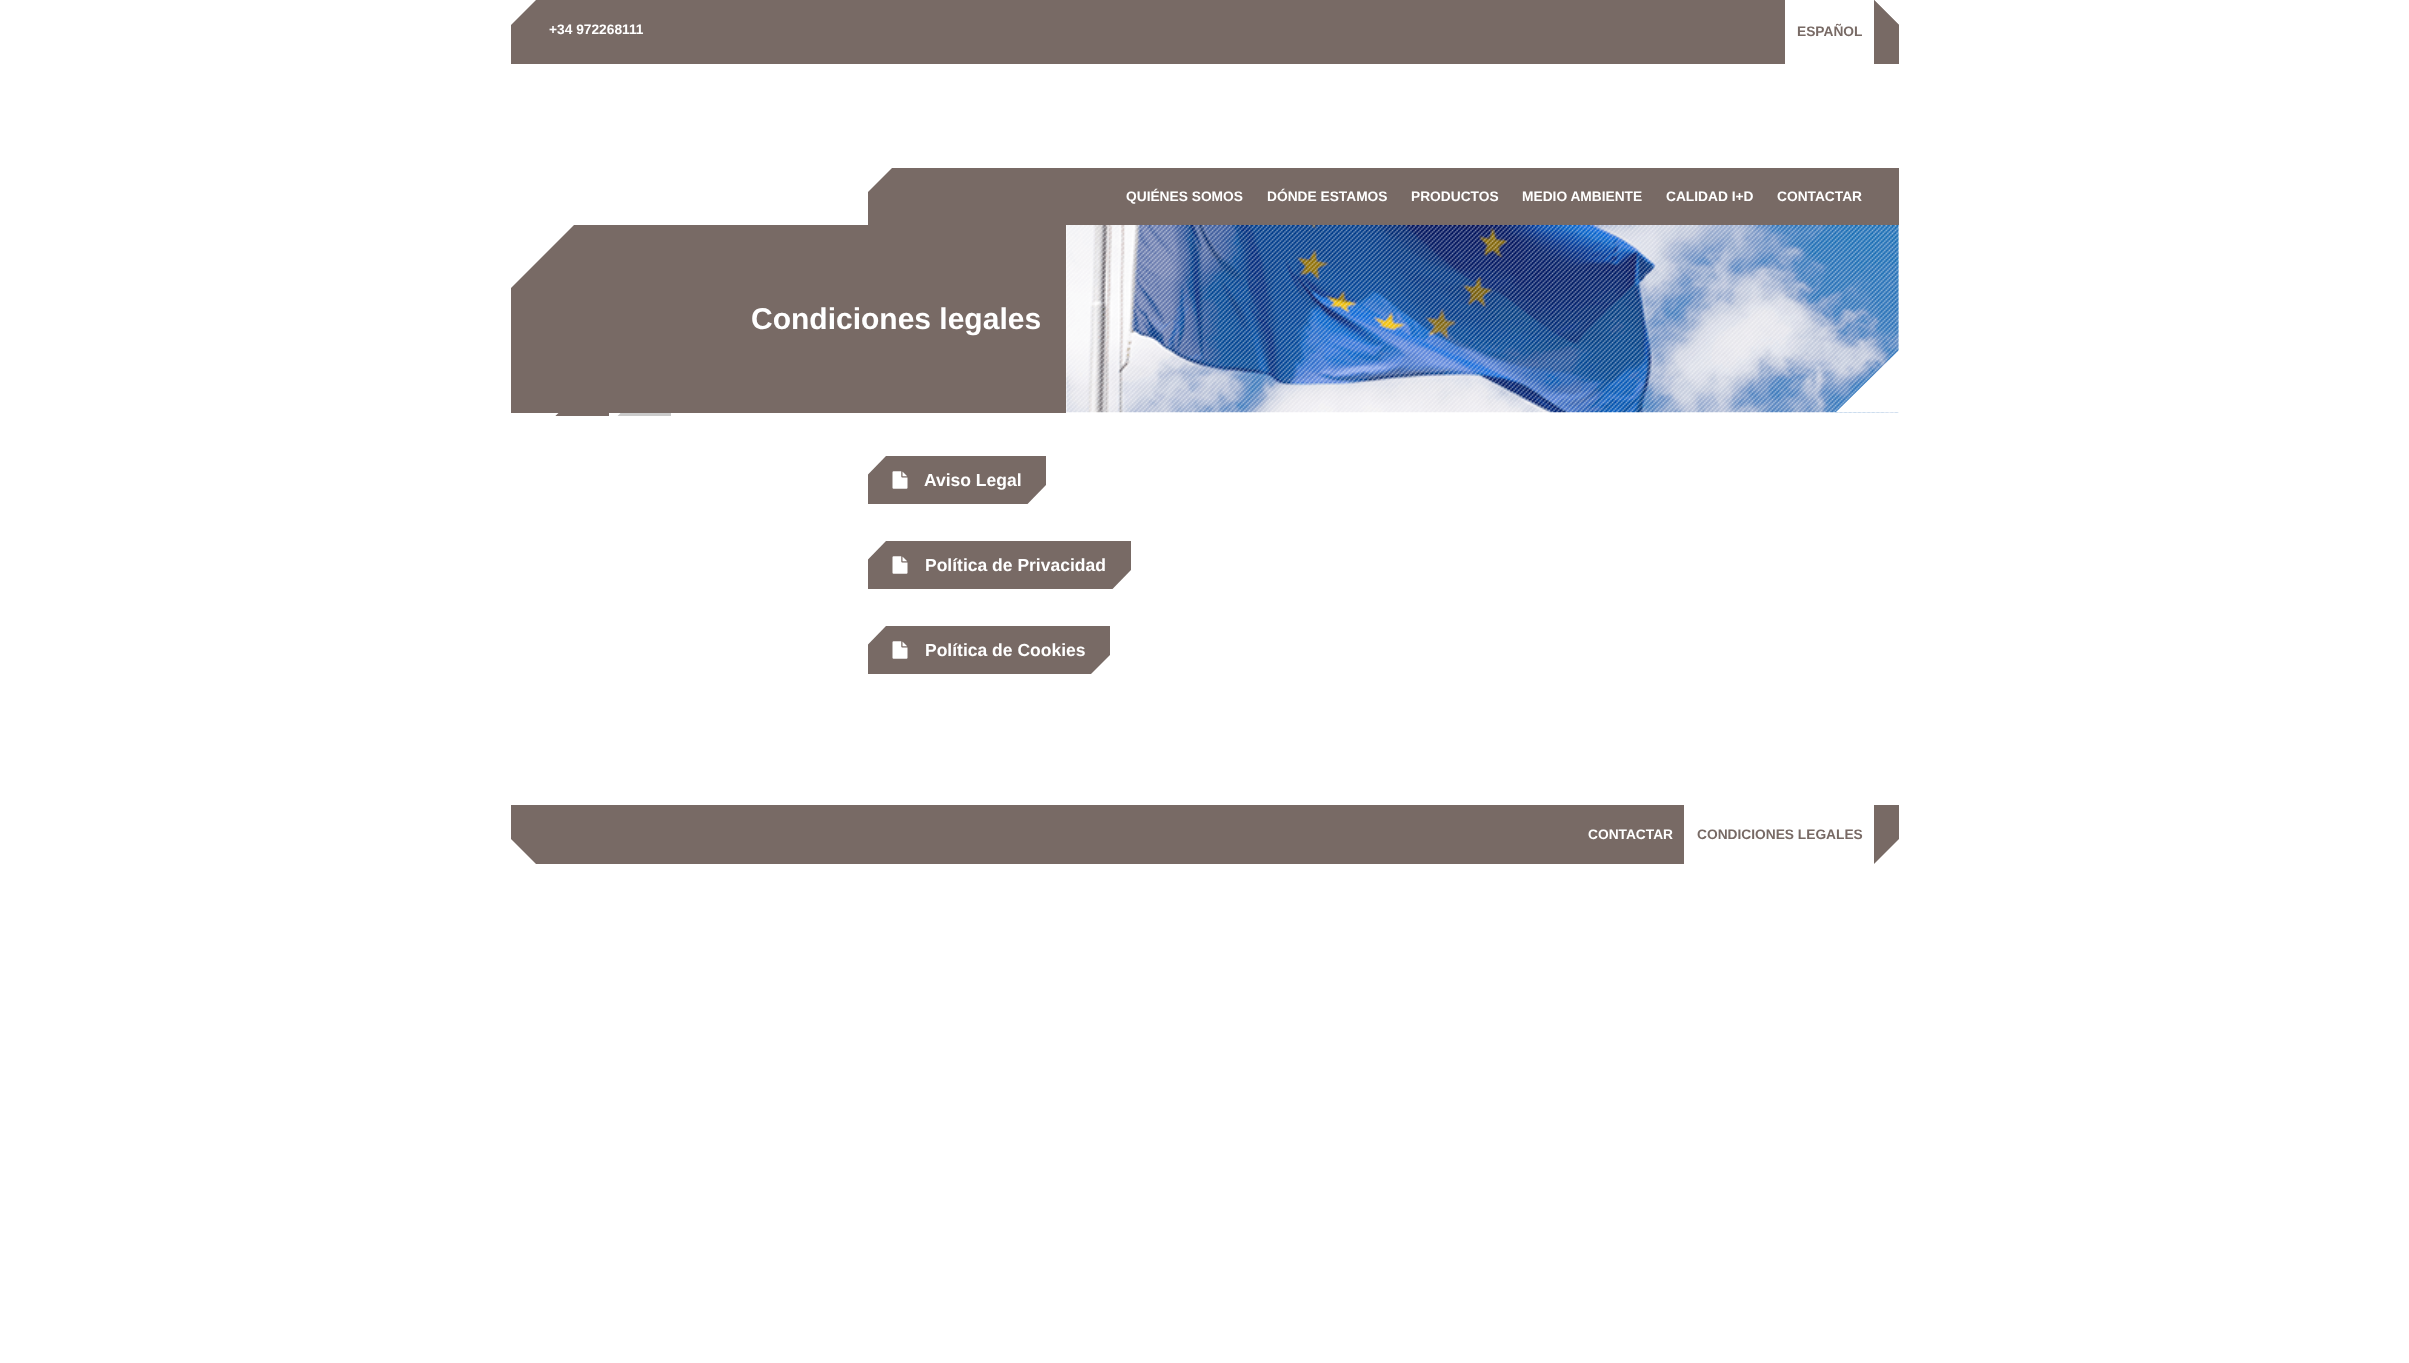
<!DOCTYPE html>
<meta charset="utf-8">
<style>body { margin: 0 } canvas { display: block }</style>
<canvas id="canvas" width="2409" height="1363"></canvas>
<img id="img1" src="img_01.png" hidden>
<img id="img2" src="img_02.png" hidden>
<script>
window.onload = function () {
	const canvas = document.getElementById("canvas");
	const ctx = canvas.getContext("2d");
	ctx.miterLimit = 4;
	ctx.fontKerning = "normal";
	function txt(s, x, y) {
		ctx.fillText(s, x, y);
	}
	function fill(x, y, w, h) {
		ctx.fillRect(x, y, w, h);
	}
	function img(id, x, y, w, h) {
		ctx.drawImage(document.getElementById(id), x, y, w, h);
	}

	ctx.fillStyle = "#FFFFFF";
	fill(0, 0, 2409, 1363);
	ctx.fillStyle = "#786A65";
	fill(511, 0, 1388, 64);
	ctx.fillStyle = "#FFFFFF";
	ctx.beginPath();
	ctx.moveTo(511, 25);
	ctx.lineTo(511, 0);
	ctx.lineTo(536, 0);
	ctx.closePath();
	ctx.fill();
	ctx.beginPath();
	ctx.moveTo(1899, 0);
	ctx.lineTo(1899, 25);
	ctx.lineTo(1874, 0);
	ctx.closePath();
	ctx.fill();
	ctx.fillStyle = "#786A65";
	ctx.beginPath();
	ctx.moveTo(1899, 25);
	ctx.lineTo(1874, 25);
	ctx.lineTo(1874, 0);
	ctx.closePath();
	ctx.fill();
	ctx.fillStyle = "#FFFFFF";
	fill(1785, 0, 89, 64);
	ctx.fillStyle = "#786A65";
	fill(868, 168, 1031, 57);
	ctx.save();
	ctx.beginPath();
	ctx.rect(868, 168, 1031, 57);
	ctx.clip();
	ctx.fillStyle = "#FFFFFF";
	ctx.beginPath();
	ctx.moveTo(867.5, 192.5);
	ctx.lineTo(867.5, 167.5);
	ctx.lineTo(892.5, 167.5);
	ctx.closePath();
	ctx.fill();
	ctx.restore();
	fill(511, 225, 555, 188);
	ctx.fillStyle = "#FFFFFF";
	ctx.beginPath();
	ctx.moveTo(511, 288);
	ctx.lineTo(511, 225);
	ctx.lineTo(574, 225);
	ctx.closePath();
	ctx.fill();
	img("img1", 1066, 225, 833, 188);
	ctx.beginPath();
	ctx.moveTo(1899, 350);
	ctx.lineTo(1899, 412);
	ctx.lineTo(1836, 412);
	ctx.closePath();
	ctx.fill();
	ctx.fillStyle = "#786A65";
	fill(555, 413, 54, 3);
	ctx.save();
	ctx.beginPath();
	ctx.rect(546, 413, 63, 3);
	ctx.clip();
	ctx.fillStyle = "#FFFFFF";
	ctx.beginPath();
	ctx.moveTo(546, 425);
	ctx.lineTo(546, 412.5);
	ctx.lineTo(559, 412.5);
	ctx.closePath();
	ctx.fill();
	ctx.restore();
	ctx.fillStyle = "#CACACA";
	fill(609, 413, 62, 3);
	ctx.save();
	ctx.beginPath();
	ctx.rect(609, 413, 62, 3);
	ctx.clip();
	ctx.fillStyle = "#FFFFFF";
	ctx.beginPath();
	ctx.moveTo(609, 425);
	ctx.lineTo(609, 412.5);
	ctx.lineTo(621, 412.5);
	ctx.closePath();
	ctx.fill();
	ctx.restore();
	ctx.fillStyle = "#786A65";
	fill(868, 456, 178, 48);
	ctx.save();
	ctx.beginPath();
	ctx.rect(868, 456, 178, 48);
	ctx.clip();
	ctx.fillStyle = "#FFFFFF";
	ctx.beginPath();
	ctx.moveTo(867.5, 475);
	ctx.lineTo(867.5, 456);
	ctx.lineTo(886, 456);
	ctx.closePath();
	ctx.fill();
	ctx.restore();
	img("img2", 892, 471, 16, 18);
	ctx.fillStyle = "#FFFFFF";
	ctx.beginPath();
	ctx.moveTo(1046, 485);
	ctx.lineTo(1046, 504);
	ctx.lineTo(1027.5, 504);
	ctx.closePath();
	ctx.fill();
	ctx.fillStyle = "#786A65";
	fill(868, 541, 263, 48);
	ctx.save();
	ctx.beginPath();
	ctx.rect(868, 541, 263, 48);
	ctx.clip();
	ctx.fillStyle = "#FFFFFF";
	ctx.beginPath();
	ctx.moveTo(867.5, 560);
	ctx.lineTo(867.5, 541);
	ctx.lineTo(886, 541);
	ctx.closePath();
	ctx.fill();
	ctx.restore();
	img("img2", 892, 556, 16, 18);
	ctx.fillStyle = "#FFFFFF";
	ctx.beginPath();
	ctx.moveTo(1131, 570);
	ctx.lineTo(1131, 589);
	ctx.lineTo(1112.5, 589);
	ctx.closePath();
	ctx.fill();
	ctx.fillStyle = "#786A65";
	fill(868, 626, 242, 48);
	ctx.save();
	ctx.beginPath();
	ctx.rect(868, 626, 242, 48);
	ctx.clip();
	ctx.fillStyle = "#FFFFFF";
	ctx.beginPath();
	ctx.moveTo(867.5, 645);
	ctx.lineTo(867.5, 626);
	ctx.lineTo(886, 626);
	ctx.closePath();
	ctx.fill();
	ctx.restore();
	img("img2", 892, 641, 16, 18);
	ctx.fillStyle = "#FFFFFF";
	ctx.beginPath();
	ctx.moveTo(1110, 655);
	ctx.lineTo(1110, 674);
	ctx.lineTo(1091, 674);
	ctx.closePath();
	ctx.fill();
	ctx.fillStyle = "#786A65";
	fill(511, 805, 1388, 59);
	ctx.fillStyle = "#FFFFFF";
	fill(1684, 805, 190, 59);
	ctx.beginPath();
	ctx.moveTo(511, 864);
	ctx.lineTo(511, 839);
	ctx.lineTo(536, 864);
	ctx.closePath();
	ctx.fill();
	ctx.beginPath();
	ctx.moveTo(1899, 839);
	ctx.lineTo(1899, 864);
	ctx.lineTo(1874, 864);
	ctx.closePath();
	ctx.fill();
	ctx.font = "bold 13.75px Liberation Sans";
	txt("+34 972268111", 549, 34);
	ctx.fillStyle = "#786A65";
	txt("ESPAÑOL", 1797, 36);
	ctx.fillStyle = "#FFFFFF";
	txt("QUIÉNES SOMOS", 1126, 201);
	txt("DÓNDE ESTAMOS", 1267, 201);
	txt("PRODUCTOS", 1411, 201);
	txt("MEDIO AMBIENTE", 1522, 201);
	txt("CALIDAD I+D", 1666, 201);
	txt("CONTACTAR", 1777, 201);
	ctx.font = "bold 30px Liberation Sans";
	txt("Condiciones legales", 751, 329);
	ctx.font = "bold 17.5px Liberation Sans";
	txt("Aviso Legal", 924, 486);
	txt("Política de Privacidad", 925, 571);
	txt("Política de Cookies", 925, 656);
	ctx.font = "bold 13.75px Liberation Sans";
	txt("CONTACTAR", 1588, 839);
	ctx.fillStyle = "#786A65";
	txt("CONDICIONES LEGALES", 1697, 839);
};
</script>
